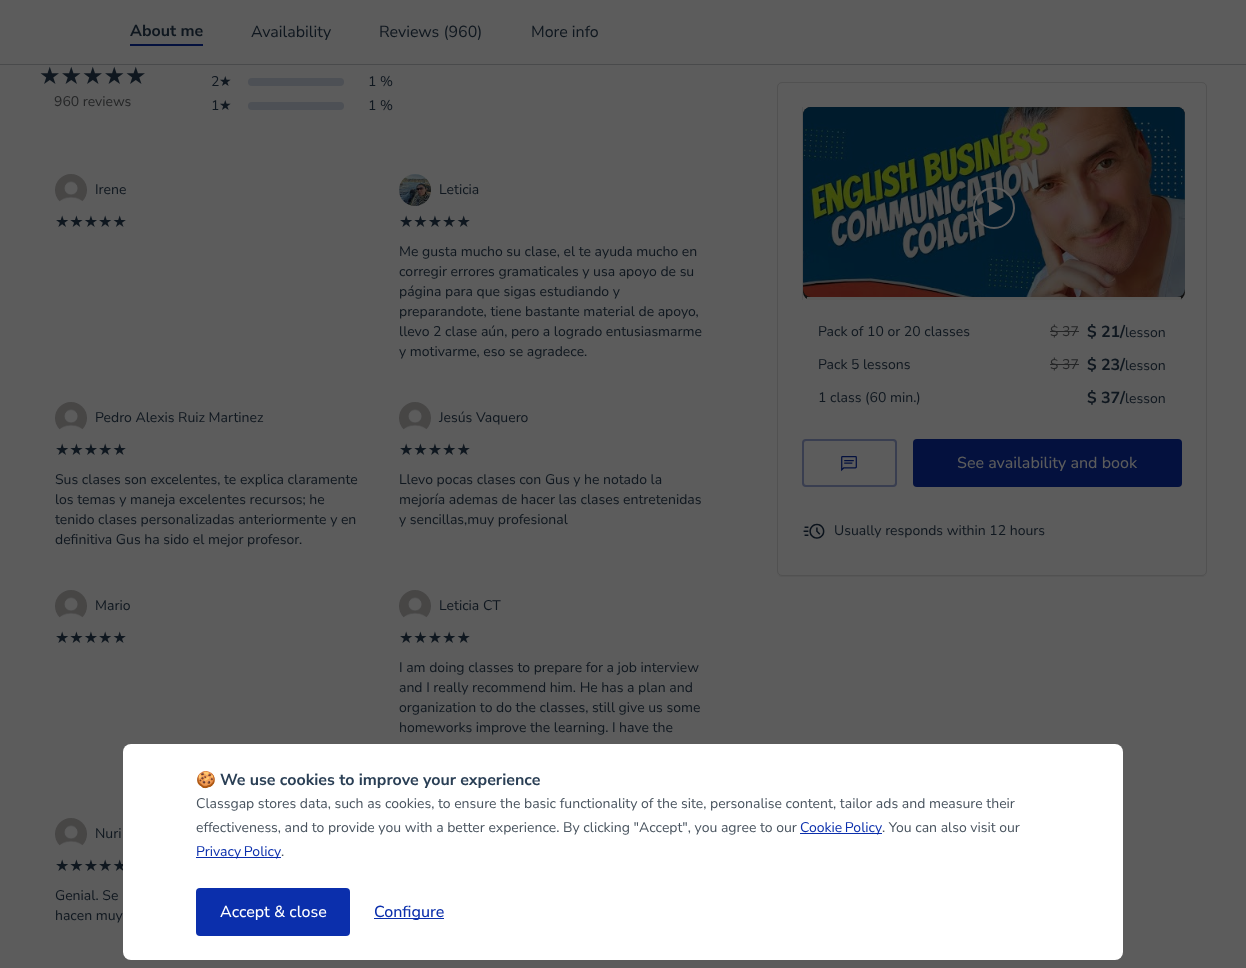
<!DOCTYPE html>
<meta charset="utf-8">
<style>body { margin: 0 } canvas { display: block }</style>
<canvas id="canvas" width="1246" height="968"></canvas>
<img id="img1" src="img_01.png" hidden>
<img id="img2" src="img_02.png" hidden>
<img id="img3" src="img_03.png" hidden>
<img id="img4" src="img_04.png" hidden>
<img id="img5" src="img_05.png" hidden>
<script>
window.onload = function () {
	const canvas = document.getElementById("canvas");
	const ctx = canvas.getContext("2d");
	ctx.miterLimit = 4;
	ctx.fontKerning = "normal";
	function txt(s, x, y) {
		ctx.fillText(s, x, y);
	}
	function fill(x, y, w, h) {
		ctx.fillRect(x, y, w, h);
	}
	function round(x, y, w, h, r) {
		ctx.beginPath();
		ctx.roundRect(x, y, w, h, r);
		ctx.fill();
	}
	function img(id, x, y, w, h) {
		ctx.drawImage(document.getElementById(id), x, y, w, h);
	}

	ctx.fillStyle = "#5C5C5C";
	fill(0, 0, 1246, 968);
	ctx.fillStyle = "#494A4B";
	fill(0, 64, 1246, 1);
	ctx.fillStyle = "#04113E";
	fill(130, 44, 73, 2);
	ctx.fillStyle = "#4D5055";
	round(248, 78, 96, 8, 4);
	round(248, 102, 96, 8, 4);
	img("img1", 55, 174, 32, 28);
	img("img2", 399, 174, 32, 32);
	img("img1", 55, 402, 32, 28);
	img("img1", 399, 402, 32, 28);
	img("img1", 55, 590, 32, 28);
	img("img1", 399, 590, 32, 28);
	img("img1", 55, 818, 32, 28);
	ctx.fillStyle = "#575757";
	ctx.beginPath();
	ctx.moveTo(777, 571);
	ctx.bezierCurveTo(777, 574, 779, 577, 782, 577);
	ctx.lineTo(1202, 577);
	ctx.bezierCurveTo(1205, 577, 1207, 574, 1207, 571);
	ctx.bezierCurveTo(1207, 574, 1205, 576, 1202, 576);
	ctx.lineTo(782, 576);
	ctx.bezierCurveTo(779, 576, 777, 574, 777, 571);
	ctx.closePath();
	ctx.fill();
	ctx.beginPath();
	ctx.roundRect(777.5, 82.5, 429, 493, 4.5);
	ctx.strokeStyle = "#515151";
	ctx.stroke();
	ctx.fillStyle = "#545454";
	fill(1181, 107, 1, 193);
	fill(802, 107, 1, 193);
	ctx.fillStyle = "#101010";
	round(803, 107, 382, 193, 8);
	ctx.fillStyle = "#595958";
	fill(807, 297, 374, 3);
	img("img3", 803, 107, 382, 190);
	ctx.beginPath();
	ctx.arc(994, 208, 20, 0, Math.PI * 2);
	ctx.strokeStyle = "#5C5C5C";
	ctx.lineWidth = 2;
	ctx.stroke();
	ctx.fillStyle = "#5C5C5C";
	ctx.beginPath();
	ctx.moveTo(989, 216);
	ctx.lineTo(989, 200);
	ctx.lineTo(1003, 208);
	ctx.closePath();
	ctx.fill();
	ctx.fillStyle = "#252627";
	fill(1050, 331, 29, 1);
	fill(1050, 364, 29, 1);
	ctx.beginPath();
	ctx.roundRect(803, 440, 93, 46, 3);
	ctx.strokeStyle = "#393E50";
	ctx.stroke();
	img("img4", 841, 456, 16, 16);
	ctx.fillStyle = "#04113E";
	round(913, 439, 269, 48, 4);
	img("img5", 803, 523, 22, 16);
	ctx.font = "bold 16px Nunito Sans";
	ctx.fillStyle = "#0F171F";
	txt("About me", 130, 36);
	ctx.font = "16px Nunito Sans";
	txt("Availability", 251, 37);
	txt("Reviews (960)", 379, 37);
	txt("More info", 531, 37);
	ctx.font = "24px DejaVu Sans";
	txt("★★★★★", 39, 84);
	ctx.font = "14px Nunito Sans";
	ctx.fillStyle = "#252627";
	txt("960 reviews", 54, 106);
	ctx.fillStyle = "#0F171F";
	txt("2", 211, 86);
	ctx.font = "14px DejaVu Sans";
	txt("★", 219, 86);
	ctx.font = "14px Nunito Sans";
	txt("1 %", 368, 86);
	txt("1", 211, 110);
	ctx.font = "14px DejaVu Sans";
	txt("★", 219, 110);
	ctx.font = "14px Nunito Sans";
	txt("1 %", 368, 110);
	txt("Irene", 95, 194);
	ctx.font = "16px DejaVu Sans";
	txt("★★★★★", 55, 227);
	ctx.font = "14px Nunito Sans";
	txt("Leticia", 439, 194);
	ctx.font = "16px DejaVu Sans";
	txt("★★★★★", 399, 227);
	ctx.font = "14px Nunito Sans";
	txt("Me gusta mucho su clase, el te ayuda mucho en", 399, 256);
	txt("corregir errores gramaticales y usa apoyo de su", 399, 276);
	txt("página para que sigas estudiando y", 399, 296);
	txt("preparandote, tiene bastante material de apoyo,", 399, 316);
	txt("llevo 2 clase aún, pero a logrado entusiasmarme", 399, 336);
	txt("y motivarme, eso se agradece.", 399, 356);
	txt("Pedro Alexis Ruiz Martinez", 95, 422);
	ctx.font = "16px DejaVu Sans";
	txt("★★★★★", 55, 455);
	ctx.font = "14px Nunito Sans";
	txt("Sus clases son excelentes, te explica claramente", 55, 484);
	txt("los temas y maneja excelentes recursos; he", 55, 504);
	txt("tenido clases personalizadas anteriormente y en", 55, 524);
	txt("definitiva Gus ha sido el mejor profesor.", 55, 544);
	txt("Jesús Vaquero", 439, 422);
	ctx.font = "16px DejaVu Sans";
	txt("★★★★★", 399, 455);
	ctx.font = "14px Nunito Sans";
	txt("Llevo pocas clases con Gus y he notado la", 399, 484);
	txt("mejoría ademas de hacer las clases entretenidas", 399, 504);
	txt("y sencillas,muy profesional", 399, 524);
	txt("Mario", 95, 610);
	ctx.font = "16px DejaVu Sans";
	txt("★★★★★", 55, 643);
	ctx.font = "14px Nunito Sans";
	txt("Leticia CT", 439, 610);
	ctx.font = "16px DejaVu Sans";
	txt("★★★★★", 399, 643);
	ctx.font = "14px Nunito Sans";
	txt("I am doing classes to prepare for a job interview", 399, 672);
	txt("and I really recommend him. He has a plan and", 399, 692);
	txt("organization to do the classes, still give us some", 399, 712);
	txt("homeworks improve the learning. I have the", 399, 732);
	txt("Nuri", 95, 838);
	ctx.font = "16px DejaVu Sans";
	txt("★★★★★", 55, 871);
	ctx.font = "14px Nunito Sans";
	txt("Genial. Se", 55, 900);
	txt("hacen muy", 55, 920);
	txt("Pack of 10 or 20 classes", 818, 336);
	ctx.fillStyle = "#252627";
	txt("$ 37", 1050, 336);
	ctx.font = "bold 16px Nunito Sans";
	ctx.fillStyle = "#0F171F";
	txt("$ 21/", 1087, 337);
	ctx.font = "14px Nunito Sans";
	txt("lesson", 1125, 337);
	txt("Pack 5 lessons", 818, 369);
	ctx.fillStyle = "#252627";
	txt("$ 37", 1050, 369);
	ctx.font = "bold 16px Nunito Sans";
	ctx.fillStyle = "#0F171F";
	txt("$ 23/", 1087, 370);
	ctx.font = "14px Nunito Sans";
	txt("lesson", 1125, 370);
	txt("1 class (60 min.)", 818, 402);
	ctx.font = "bold 16px Nunito Sans";
	txt("$ 37/", 1087, 403);
	ctx.font = "14px Nunito Sans";
	txt("lesson", 1125, 403);
	ctx.font = "500 16px Nunito Sans";
	ctx.fillStyle = "#5C5C5C";
	txt("See availability and book", 957, 468);
	ctx.font = "14px Nunito Sans";
	ctx.fillStyle = "#0F171F";
	txt("Usually responds within 12 hours", 834, 535);
	ctx.fillStyle = "#FFFFFF";
	round(123, 744, 1000, 216, 8);
	ctx.font = "bold 16px Noto Color Emoji";
	ctx.fillStyle = "#2A3F55";
	txt("🍪", 196, 785);
	ctx.font = "bold 16px Nunito Sans";
	txt("We use cookies to improve your experience", 220, 785);
	ctx.font = "14px Nunito Sans";
	ctx.fillStyle = "#49545F";
	txt("Classgap stores data, such as cookies, to ensure the basic functionality of the site, personalise content, tailor ads and measure their", 196, 808);
	txt("effectiveness, and to provide you with a better experience. By clicking \"Accept\", you agree to our", 196, 832);
	ctx.fillStyle = "#0B2FAC";
	fill(800, 833, 82, 1);
	ctx.wordSpacing = "-1px";
	txt("Cookie Policy", 800, 832);
	ctx.wordSpacing = "0px";
	ctx.fillStyle = "#49545F";
	txt(". You can also visit our", 882, 832);
	ctx.fillStyle = "#0B2FAC";
	fill(196, 857, 85, 1);
	ctx.wordSpacing = "-1px";
	txt("Privacy Policy", 196, 856);
	ctx.wordSpacing = "0px";
	ctx.fillStyle = "#49545F";
	txt(".", 281, 856);
	ctx.fillStyle = "#0B2FAC";
	round(196, 888, 154, 48, 4);
	ctx.font = "500 16px Nunito Sans";
	ctx.fillStyle = "#FFFFFF";
	txt("Accept & close", 220, 917);
	ctx.fillStyle = "#0B2FAC";
	fill(374, 918, 70, 1);
	txt("Configure", 374, 917);
};
</script>
